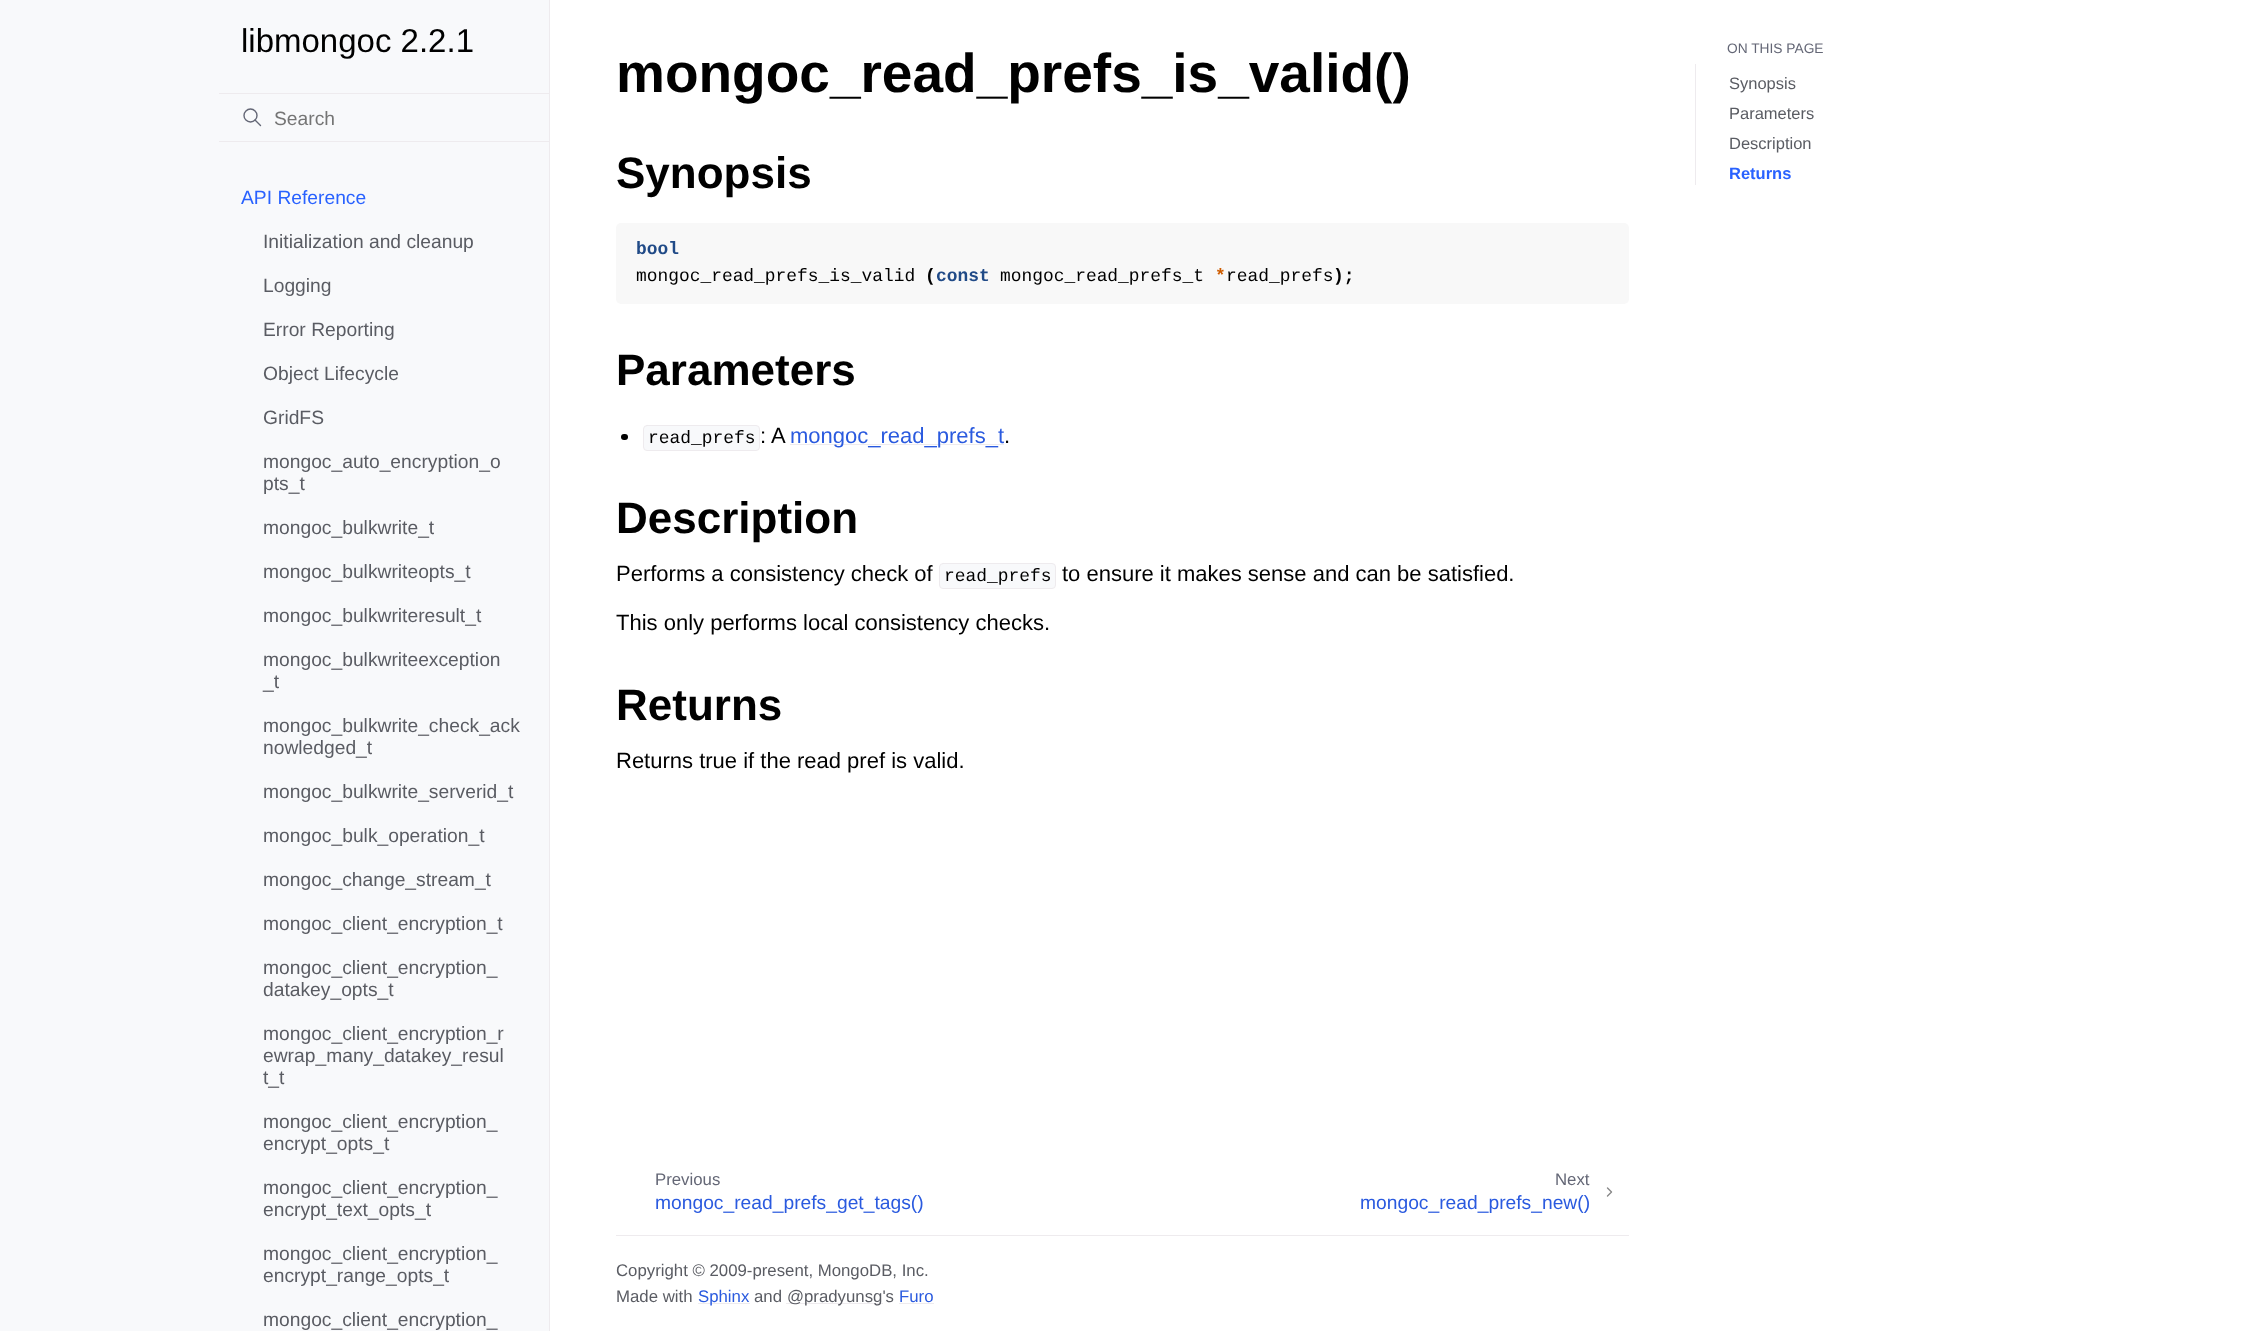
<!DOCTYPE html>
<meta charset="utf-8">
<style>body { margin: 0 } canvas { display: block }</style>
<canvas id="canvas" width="2245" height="1331"></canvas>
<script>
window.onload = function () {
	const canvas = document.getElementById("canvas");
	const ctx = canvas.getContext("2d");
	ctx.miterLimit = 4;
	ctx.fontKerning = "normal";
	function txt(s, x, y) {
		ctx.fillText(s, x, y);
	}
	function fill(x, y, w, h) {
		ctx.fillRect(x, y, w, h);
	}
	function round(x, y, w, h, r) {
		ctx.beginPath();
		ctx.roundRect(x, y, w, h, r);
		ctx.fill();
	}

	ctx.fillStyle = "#FFFFFF";
	fill(0, 0, 2245, 1331);
	ctx.fillStyle = "#F8F9FB";
	fill(0, 0, 549, 1331);
	ctx.fillStyle = "#EEEBEE";
	fill(549, 0, 1, 1331);
	ctx.beginPath();
	ctx.arc(250.5, 115.5, 6.5, 0, Math.PI * 2);
	ctx.strokeStyle = "#646776";
	ctx.lineWidth = 1.4;
	ctx.stroke();
	ctx.beginPath();
	ctx.moveTo(260.5, 125.5);
	ctx.lineTo(255, 120);
	ctx.lineCap = "round";
	ctx.lineJoin = "round";
	ctx.stroke();
	fill(219, 93, 330, 1);
	fill(219, 141, 330, 1);
	ctx.fillStyle = "#F8F8F8";
	round(616, 223, 1013, 81, 5);
	ctx.fillStyle = "#000000";
	round(621, 434, 7, 6, 3);
	ctx.fillStyle = "#F8F9FB";
	ctx.beginPath();
	ctx.roundRect(643.5, 425.5, 116, 25, 3.5);
	ctx.fill();
	ctx.strokeStyle = "#EEEBEE";
	ctx.lineWidth = 1;
	ctx.lineJoin = "miter";
	ctx.stroke();
	ctx.fillStyle = "#EEEBEE";
	fill(790, 444, 214, 1);
	ctx.fillStyle = "#F8F9FB";
	ctx.beginPath();
	ctx.roundRect(939.5, 563.5, 116, 25, 3.5);
	ctx.fill();
	ctx.stroke();
	ctx.beginPath();
	ctx.moveTo(1607.5, 1196);
	ctx.lineTo(1611.5, 1192);
	ctx.lineTo(1607.5, 1188);
	ctx.strokeStyle = "#878787";
	ctx.lineWidth = 1.4;
	ctx.lineJoin = "round";
	ctx.stroke();
	ctx.fillStyle = "#EEEBEE";
	fill(616, 1235, 1013, 1);
	fill(698, 1303, 52, 1);
	fill(786, 1303, 97, 1);
	fill(899, 1303, 35, 1);
	fill(1695, 64, 1, 121);
	ctx.font = "33px Liberation Sans";
	ctx.fillStyle = "#000000";
	txt("libmongoc 2.2.1", 241, 52);
	ctx.font = "19.25px Liberation Sans";
	ctx.fillStyle = "#757575";
	txt("Search", 274, 125);
	ctx.fillStyle = "#2962FF";
	txt("API Reference", 241, 204);
	ctx.fillStyle = "#5A5C63";
	txt("Initialization and cleanup", 263, 248);
	txt("Logging", 263, 292);
	txt("Error Reporting", 263, 336);
	txt("Object Lifecycle", 263, 380);
	txt("GridFS", 263, 424);
	txt("mongoc_auto_encryption_o", 263, 468);
	txt("pts_t", 263, 490);
	txt("mongoc_bulkwrite_t", 263, 534);
	txt("mongoc_bulkwriteopts_t", 263, 578);
	txt("mongoc_bulkwriteresult_t", 263, 622);
	txt("mongoc_bulkwriteexception", 263, 666);
	txt("_t", 263, 688);
	txt("mongoc_bulkwrite_check_ack", 263, 732);
	txt("nowledged_t", 263, 754);
	txt("mongoc_bulkwrite_serverid_t", 263, 798);
	txt("mongoc_bulk_operation_t", 263, 842);
	txt("mongoc_change_stream_t", 263, 886);
	txt("mongoc_client_encryption_t", 263, 930);
	txt("mongoc_client_encryption_", 263, 974);
	txt("datakey_opts_t", 263, 996);
	txt("mongoc_client_encryption_r", 263, 1040);
	txt("ewrap_many_datakey_resul", 263, 1062);
	txt("t_t", 263, 1084);
	txt("mongoc_client_encryption_", 263, 1128);
	txt("encrypt_opts_t", 263, 1150);
	txt("mongoc_client_encryption_", 263, 1194);
	txt("encrypt_text_opts_t", 263, 1216);
	txt("mongoc_client_encryption_", 263, 1260);
	txt("encrypt_range_opts_t", 263, 1282);
	txt("mongoc_client_encryption_", 263, 1326);
	ctx.font = "bold 55px Liberation Sans";
	ctx.fillStyle = "#000000";
	txt("mongoc_read_prefs_is_valid()", 616, 92);
	ctx.font = "bold 44px Liberation Sans";
	txt("Synopsis", 616, 188);
	ctx.font = "bold 17.9px Liberation Mono";
	ctx.fillStyle = "#204A87";
	txt("bool", 636, 254);
	ctx.font = "17.9px Liberation Mono";
	ctx.fillStyle = "#000000";
	txt("mongoc_read_prefs_is_valid", 636, 281);
	ctx.font = "bold 17.9px Liberation Mono";
	txt("(", 925, 281);
	ctx.fillStyle = "#204A87";
	txt("const", 936, 281);
	ctx.font = "17.9px Liberation Mono";
	ctx.fillStyle = "#000000";
	txt("mongoc_read_prefs_t", 1000, 281);
	ctx.font = "bold 17.9px Liberation Mono";
	ctx.fillStyle = "#CE5C00";
	txt("*", 1215, 281);
	ctx.font = "17.9px Liberation Mono";
	ctx.fillStyle = "#000000";
	txt("read_prefs", 1226, 281);
	ctx.font = "bold 17.9px Liberation Mono";
	txt(");", 1333, 281);
	ctx.font = "bold 44px Liberation Sans";
	txt("Parameters", 616, 385);
	ctx.font = "17.9px Liberation Mono";
	txt("read_prefs", 648, 443);
	ctx.font = "22px Liberation Sans";
	txt(": A", 760, 443);
	ctx.fillStyle = "#2A5ADF";
	txt("mongoc_read_prefs_t", 790, 443);
	ctx.fillStyle = "#000000";
	txt(".", 1004, 443);
	ctx.font = "bold 44px Liberation Sans";
	txt("Description", 616, 533);
	ctx.font = "22px Liberation Sans";
	txt("Performs a consistency check of", 616, 581);
	ctx.font = "17.9px Liberation Mono";
	txt("read_prefs", 944, 581);
	ctx.font = "22px Liberation Sans";
	txt("to ensure it makes sense and can be satisfied.", 1062, 581);
	txt("This only performs local consistency checks.", 616, 630);
	ctx.font = "bold 44px Liberation Sans";
	txt("Returns", 616, 720);
	ctx.font = "22px Liberation Sans";
	txt("Returns true if the read pref is valid.", 616, 768);
	ctx.font = "16.8px Liberation Sans";
	ctx.fillStyle = "#646776";
	txt("Previous", 655, 1185);
	ctx.font = "19.25px Liberation Sans";
	ctx.fillStyle = "#2A5ADF";
	txt("mongoc_read_prefs_get_tags()", 655, 1209);
	ctx.font = "16.8px Liberation Sans";
	ctx.fillStyle = "#646776";
	txt("Next", 1555, 1185);
	ctx.font = "19.25px Liberation Sans";
	ctx.fillStyle = "#2A5ADF";
	txt("mongoc_read_prefs_new()", 1360, 1209);
	ctx.font = "16.8px Liberation Sans";
	ctx.fillStyle = "#5A5C63";
	txt("Copyright © 2009-present, MongoDB, Inc.", 616, 1276);
	txt("Made with", 616, 1302);
	ctx.fillStyle = "#2A5ADF";
	txt("Sphinx", 698, 1302);
	ctx.fillStyle = "#5A5C63";
	txt("and", 754, 1302);
	txt("@pradyunsg's", 787, 1302);
	ctx.fillStyle = "#2A5ADF";
	txt("Furo", 899, 1302);
	ctx.font = "13.75px Liberation Sans";
	ctx.fillStyle = "#646776";
	txt("ON THIS PAGE", 1727, 53);
	ctx.font = "16.5px Liberation Sans";
	ctx.fillStyle = "#5A5C63";
	txt("Synopsis", 1729, 89);
	txt("Parameters", 1729, 119);
	txt("Description", 1729, 149);
	ctx.font = "bold 16.5px Liberation Sans";
	ctx.fillStyle = "#2962FF";
	txt("Returns", 1729, 179);
};
</script>
